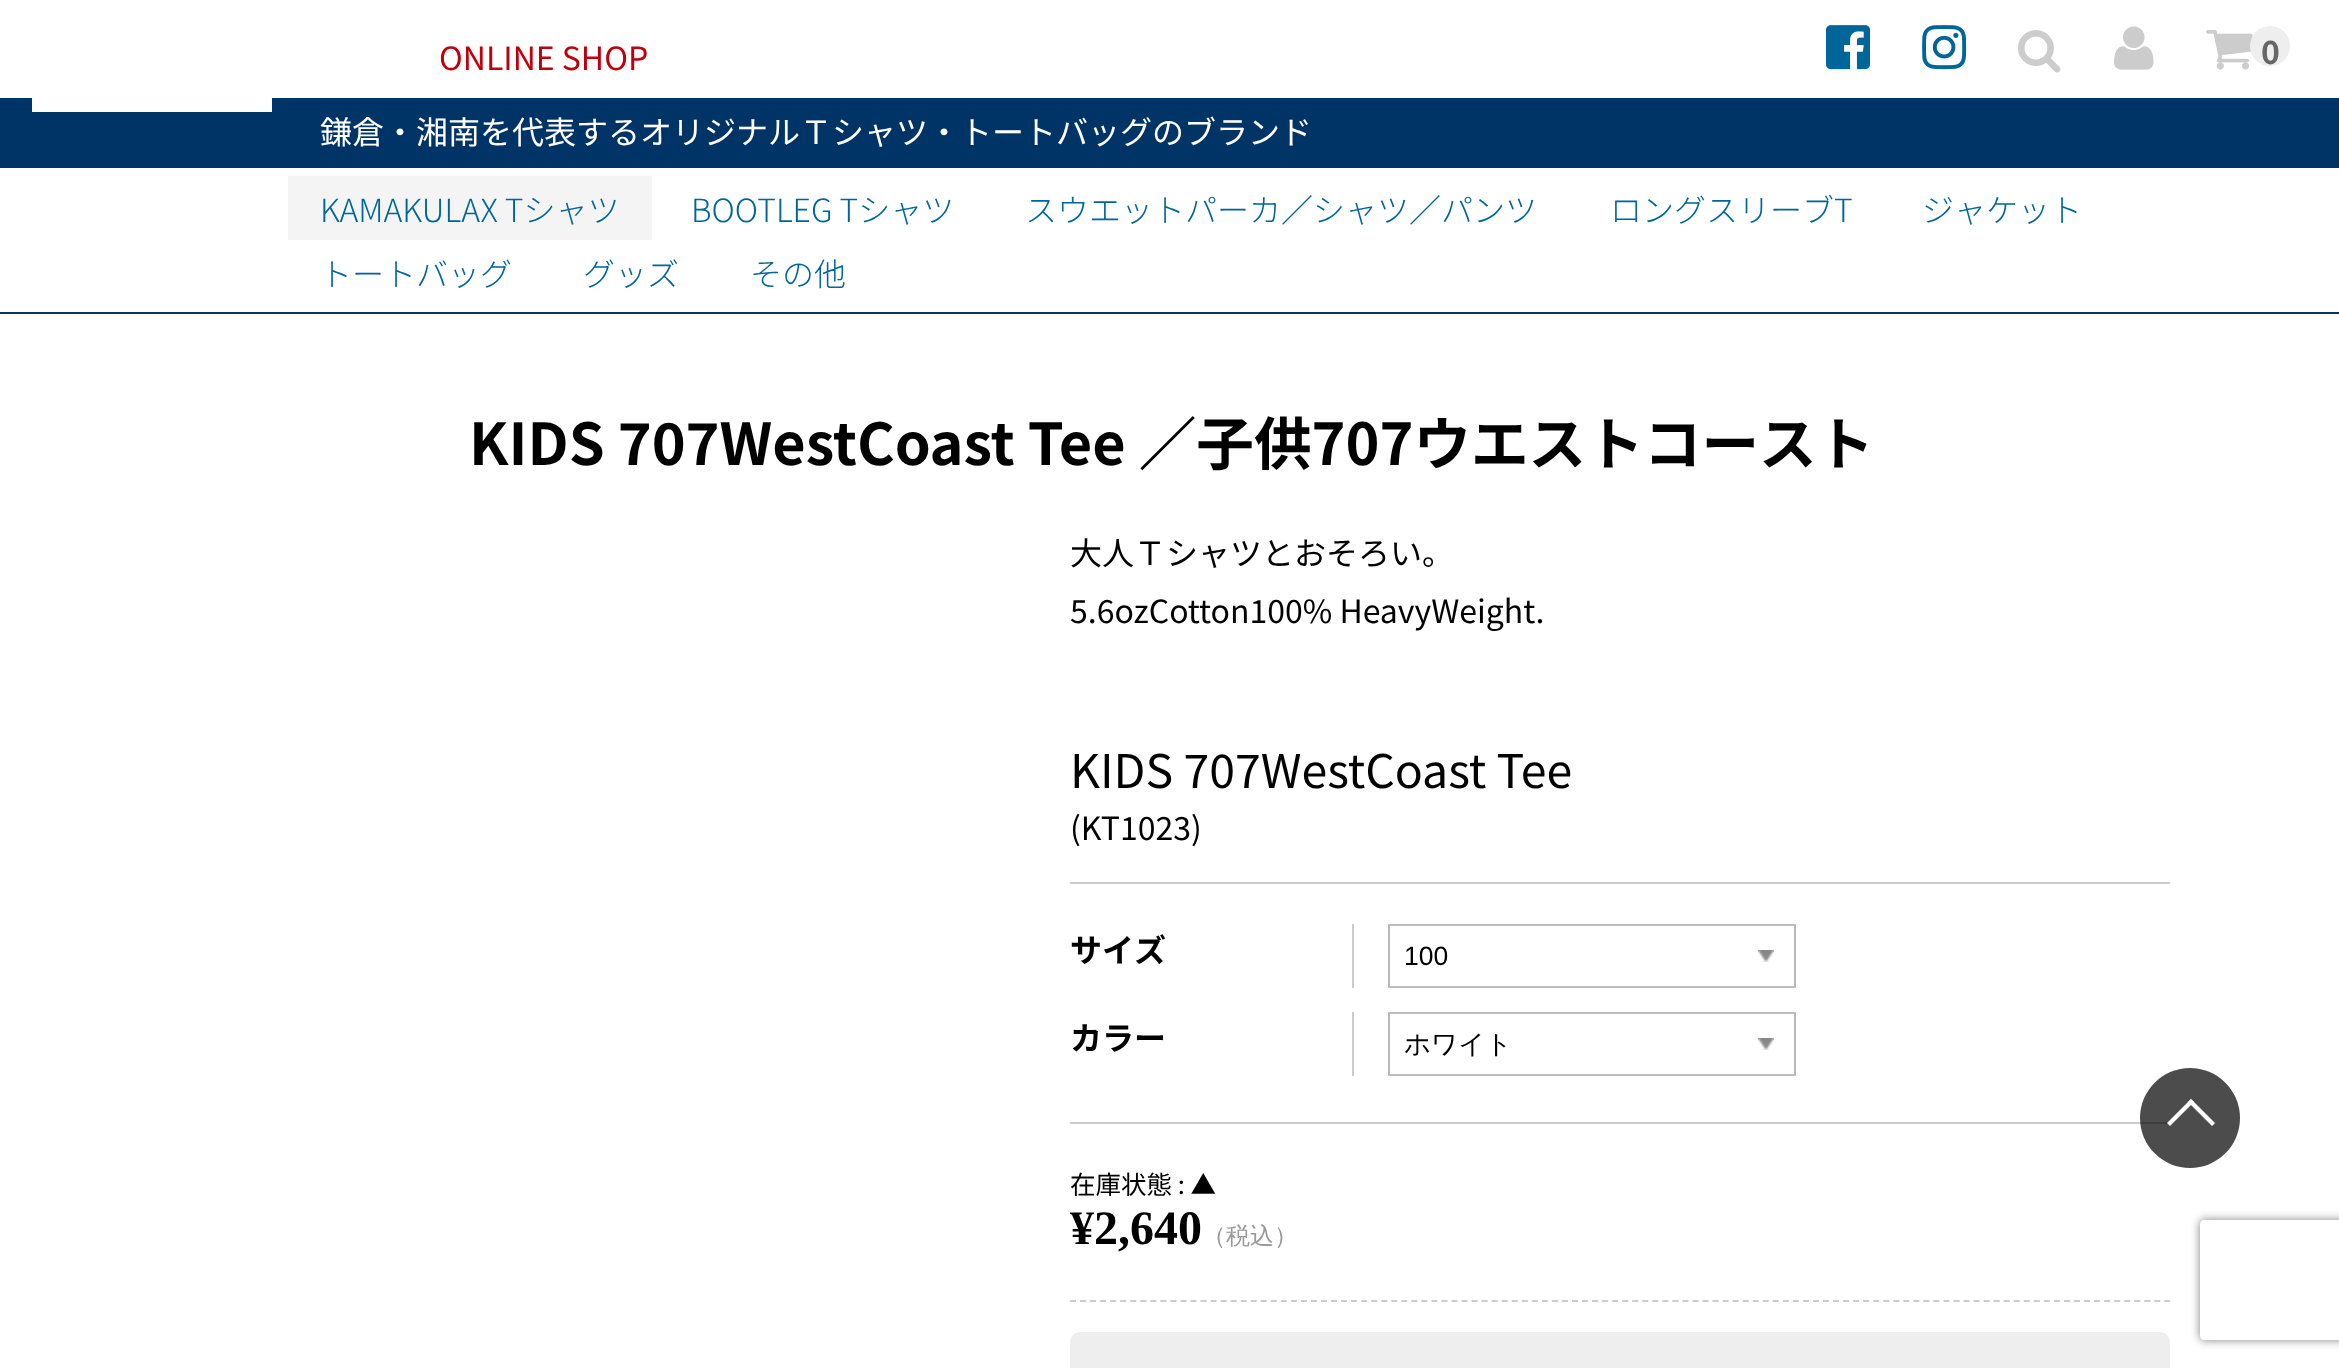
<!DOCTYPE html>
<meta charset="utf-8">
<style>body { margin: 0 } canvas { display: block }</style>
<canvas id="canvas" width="2339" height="1368"></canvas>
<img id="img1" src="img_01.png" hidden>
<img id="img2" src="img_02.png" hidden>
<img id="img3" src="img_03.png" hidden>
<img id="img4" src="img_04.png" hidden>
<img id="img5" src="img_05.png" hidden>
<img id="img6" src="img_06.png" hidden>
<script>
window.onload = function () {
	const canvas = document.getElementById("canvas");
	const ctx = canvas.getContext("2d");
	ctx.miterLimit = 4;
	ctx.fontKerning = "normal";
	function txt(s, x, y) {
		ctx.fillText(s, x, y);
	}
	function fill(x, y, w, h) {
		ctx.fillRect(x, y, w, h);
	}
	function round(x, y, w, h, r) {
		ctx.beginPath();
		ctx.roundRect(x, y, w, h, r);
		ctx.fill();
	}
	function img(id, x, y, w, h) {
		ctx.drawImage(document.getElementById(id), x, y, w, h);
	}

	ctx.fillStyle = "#FFFFFF";
	fill(0, 0, 2339, 1368);
	img("img1", 1826, 25, 44, 45);
	img("img2", 1922, 25, 45, 45);
	img("img3", 2018, 30, 43, 43);
	img("img4", 2114, 26, 40, 44);
	img("img5", 2206, 30, 47, 40);
	ctx.fillStyle = "#EEEEEE";
	ctx.beginPath();
	ctx.arc(2270, 46, 20, 0, Math.PI * 2);
	ctx.fill();
	ctx.fillStyle = "#003366";
	fill(0, 98, 2339, 70);
	ctx.fillStyle = "#FFFFFF";
	fill(32, 98, 240, 14);
	ctx.fillStyle = "#003366";
	fill(0, 312, 2339, 2);
	ctx.fillStyle = "#F4F4F4";
	fill(288, 176, 364, 64);
	ctx.beginPath();
	ctx.moveTo(1070, 1301);
	ctx.lineTo(2170, 1301);
	ctx.strokeStyle = "#CCCCCC";
	ctx.lineWidth = 2;
	ctx.setLineDash([6, 4.04]);
	ctx.stroke();
	ctx.fillStyle = "#CCCCCC";
	fill(1070, 882, 1100, 2);
	fill(1070, 1122, 1100, 2);
	fill(1352, 924, 2, 64);
	img("img6", 1758, 950, 16, 12);
	ctx.strokeStyle = "#BBBBBB";
	ctx.setLineDash([]);
	ctx.strokeRect(1389, 925, 406, 62);
	fill(1352, 1012, 2, 64);
	img("img6", 1758, 1038, 16, 12);
	ctx.strokeRect(1389, 1013, 406, 62);
	ctx.fillStyle = "#EEEEEE";
	round(1070, 1332, 1100, 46, 10);
	ctx.fillStyle = "rgba(0, 0, 0, 0.7)";
	ctx.beginPath();
	ctx.arc(2190, 1118, 50, 0, Math.PI * 2);
	ctx.fill();
	ctx.fillStyle = "#FFFFFF";
	ctx.beginPath();
	ctx.moveTo(2167, 1123);
	ctx.lineTo(2191, 1099);
	ctx.lineTo(2194, 1102);
	ctx.lineTo(2170, 1126);
	ctx.closePath();
	ctx.fill();
	ctx.beginPath();
	ctx.moveTo(2188, 1102);
	ctx.lineTo(2191, 1099);
	ctx.lineTo(2215, 1123);
	ctx.lineTo(2212, 1126);
	ctx.closePath();
	ctx.fill();
	ctx.save();
	ctx.beginPath();
	ctx.moveTo(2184, 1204);
	ctx.lineTo(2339, 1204);
	ctx.lineTo(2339, 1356);
	ctx.lineTo(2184, 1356);
	ctx.closePath();
	ctx.moveTo(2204, 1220);
	ctx.lineTo(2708, 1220);
	ctx.bezierCurveTo(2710, 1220, 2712, 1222, 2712, 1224);
	ctx.lineTo(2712, 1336);
	ctx.bezierCurveTo(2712, 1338, 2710, 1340, 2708, 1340);
	ctx.lineTo(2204, 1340);
	ctx.bezierCurveTo(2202, 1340, 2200, 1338, 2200, 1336);
	ctx.lineTo(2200, 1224);
	ctx.bezierCurveTo(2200, 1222, 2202, 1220, 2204, 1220);
	ctx.closePath();
	ctx.clip("evenodd");
	ctx.fillStyle = "#808080";
	ctx.filter = "blur(5px)";
	ctx.beginPath();
	ctx.roundRect(2200, 1220, 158, 120, 4);
	ctx.fill();
	ctx.filter = "none";
	ctx.restore();
	ctx.font = "32px Noto Sans JP";
	ctx.fillStyle = "#BF000C";
	txt("ONLINE SHOP", 439, 70);
	ctx.font = "bold 32px Noto Sans JP";
	ctx.fillStyle = "#666666";
	txt("0", 2261, 64);
	ctx.font = "32px Noto Sans JP";
	ctx.fillStyle = "#FFFFFF";
	txt("鎌倉・湘南を代表するオリジナルＴシャツ・トートバッグのブランド", 320, 144);
	ctx.font = "300 32px Noto Sans JP";
	ctx.fillStyle = "#006699";
	txt("KAMAKULAX Tシャツ", 320, 222);
	txt("BOOTLEG Tシャツ", 691, 222);
	txt("スウエットパーカ／シャツ／パンツ", 1025, 222);
	txt("ロングスリーブT", 1610, 222);
	txt("ジャケット", 1922, 222);
	txt("トートバッグ", 320, 286);
	txt("グッズ", 583, 286);
	txt("その他", 750, 286);
	ctx.font = "bold 57.6px Noto Sans JP";
	ctx.fillStyle = "#000000";
	txt("KIDS 707WestCoast Tee ／子供707ウエストコースト", 469, 465);
	ctx.font = "32px Noto Sans JP";
	txt("大人Ｔシャツとおそろい。", 1070, 565);
	txt("5.6ozCotton100% HeavyWeight.", 1070, 623);
	ctx.font = "46.4px Noto Sans JP";
	txt("KIDS 707WestCoast Tee", 1070, 788);
	ctx.font = "32px Noto Sans JP";
	txt("(KT1023)", 1070, 840);
	ctx.font = "bold 32px Noto Sans JP";
	txt("サイズ", 1070, 962);
	ctx.font = "26.5px Liberation Sans";
	txt("100", 1404, 965);
	ctx.font = "bold 32px Noto Sans JP";
	txt("カラー", 1070, 1050);
	ctx.font = "500 26.5px WenQuanYi Zen Hei";
	txt("ホワイト", 1404, 1053);
	ctx.font = "25.5px Noto Sans JP";
	txt("在庫状態 : ▲", 1070, 1194);
	ctx.font = "bold 48px Liberation Serif";
	txt("¥2,640", 1070, 1244);
	ctx.font = "500 24px WenQuanYi Zen Hei";
	ctx.fillStyle = "#999999";
	txt("（税込）", 1202, 1244);
};
</script>
